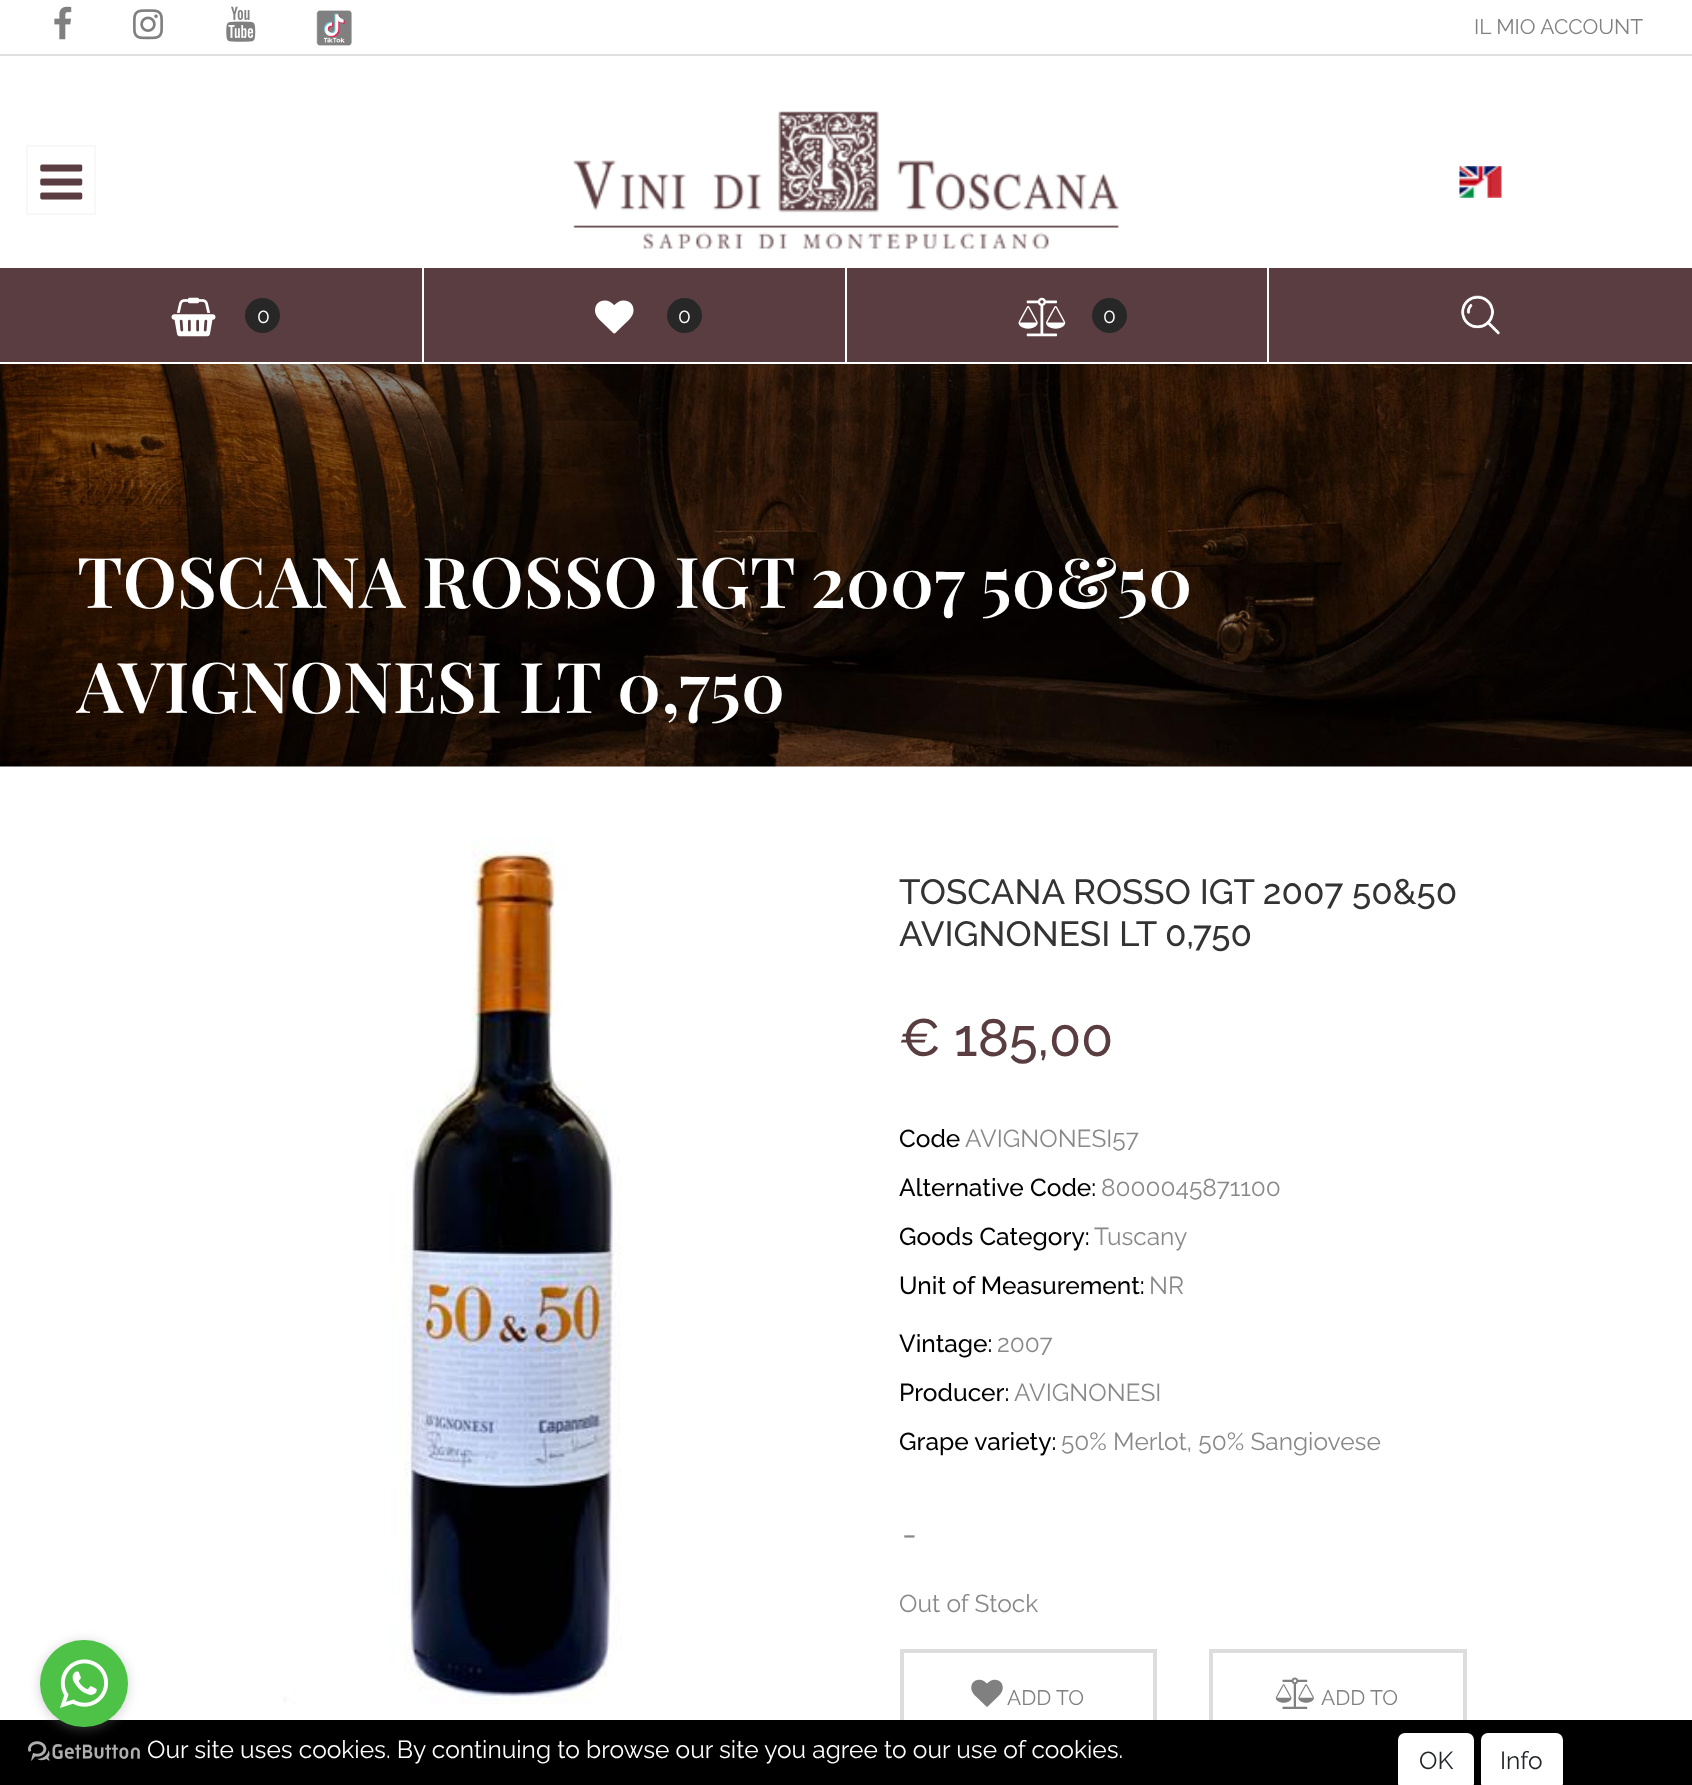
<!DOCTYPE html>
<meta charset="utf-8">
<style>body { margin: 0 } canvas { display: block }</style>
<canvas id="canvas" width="1692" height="1785"></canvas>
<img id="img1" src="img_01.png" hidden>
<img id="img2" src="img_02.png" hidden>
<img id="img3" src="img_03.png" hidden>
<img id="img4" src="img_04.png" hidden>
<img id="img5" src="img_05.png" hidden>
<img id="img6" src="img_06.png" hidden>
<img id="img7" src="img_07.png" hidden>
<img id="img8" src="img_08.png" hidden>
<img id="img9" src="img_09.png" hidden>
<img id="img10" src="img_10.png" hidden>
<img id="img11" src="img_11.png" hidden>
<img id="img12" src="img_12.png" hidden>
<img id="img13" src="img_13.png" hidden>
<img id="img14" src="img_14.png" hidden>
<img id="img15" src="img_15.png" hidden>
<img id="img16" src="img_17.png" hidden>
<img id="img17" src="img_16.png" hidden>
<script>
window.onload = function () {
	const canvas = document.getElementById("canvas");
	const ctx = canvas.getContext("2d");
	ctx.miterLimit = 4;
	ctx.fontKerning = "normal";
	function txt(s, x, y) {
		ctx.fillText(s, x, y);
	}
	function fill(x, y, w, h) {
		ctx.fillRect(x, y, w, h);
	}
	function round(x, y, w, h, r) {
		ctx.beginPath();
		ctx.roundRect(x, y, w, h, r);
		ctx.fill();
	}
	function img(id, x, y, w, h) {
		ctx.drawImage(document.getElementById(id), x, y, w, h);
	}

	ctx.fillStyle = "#FFFFFF";
	fill(0, 0, 1692, 1785);
	ctx.fillStyle = "#DFDFDF";
	fill(0, 54, 1692, 2);
	img("img1", 54, 6, 18, 34);
	img("img2", 133, 9, 30, 31);
	img("img3", 226, 6, 30, 36);
	img("img4", 316, 10, 36, 36);
	ctx.strokeStyle = "#F8F8F8";
	ctx.lineWidth = 2;
	ctx.strokeRect(27, 146, 68, 68);
	img("img5", 40, 164, 43, 36);
	img("img6", 573, 111, 546, 138);
	img("img7", 1459, 166, 43, 32);
	ctx.fillStyle = "#5A3D41";
	fill(0, 268, 1692, 94);
	ctx.fillStyle = "#FFFFFF";
	fill(422, 268, 2, 96);
	img("img8", 171, 297, 45, 40);
	ctx.fillStyle = "#272727";
	ctx.beginPath();
	ctx.arc(262.5, 315.5, 17.5, 0, Math.PI * 2);
	ctx.fill();
	ctx.fillStyle = "#FFFFFF";
	fill(845, 268, 2, 96);
	img("img9", 595, 300, 39, 34);
	ctx.fillStyle = "#272727";
	ctx.beginPath();
	ctx.arc(684.5, 315.5, 17.5, 0, Math.PI * 2);
	ctx.fill();
	ctx.fillStyle = "#FFFFFF";
	fill(1267, 268, 2, 96);
	img("img10", 1018, 297, 48, 40);
	ctx.fillStyle = "#272727";
	ctx.beginPath();
	ctx.arc(1109.5, 315.5, 17.5, 0, Math.PI * 2);
	ctx.fill();
	img("img11", 1461, 295, 39, 40);
	img("img12", 0, 364, 1692, 403);
	img("img13", 283, 838, 339, 866);
	ctx.strokeStyle = "#DDDDDD";
	ctx.lineWidth = 4;
	ctx.strokeRect(902, 1651, 253, 132);
	img("img14", 971, 1679, 32, 28);
	ctx.strokeRect(1211, 1651, 254, 132);
	img("img15", 1275, 1677, 39, 32);
	ctx.fillStyle = "#000000";
	fill(0, 1720, 1692, 65);
	ctx.fillStyle = "#FFFFFF";
	round(1398, 1733, 76, 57, 7);
	round(1481, 1733, 82, 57, 7);
	img("img16", 28, 1741, 112, 20);
	ctx.fillStyle = "rgba(136, 136, 136, 0.4)";
	ctx.filter = "blur(6px)";
	ctx.beginPath();
	ctx.roundRect(40, 1642, 88, 87, 43.5);
	ctx.fill();
	ctx.filter = "none";
	ctx.fillStyle = "#4DC247";
	round(40, 1640, 88, 87, 43.5);
	img("img17", 60, 1659, 49, 49);
	ctx.font = "21px Raleway";
	ctx.fillStyle = "#808080";
	txt("IL MIO ACCOUNT", 1474, 34);
	ctx.fillStyle = "#FFFFFF";
	txt("0", 257, 323);
	txt("0", 678, 323);
	txt("0", 1103, 323);
	ctx.font = "600 70px Playfair Display";
	txt("TOSCANA ROSSO IGT 2007 50&50", 77, 608);
	txt("AVIGNONESI LT 0,750", 77, 713);
	ctx.font = "500 35px Raleway";
	ctx.fillStyle = "#333333";
	txt("TOSCANA ROSSO IGT 2007 50&50", 899, 904);
	txt("AVIGNONESI LT 0,750", 899, 946);
	ctx.font = "500 52.5px Raleway";
	ctx.fillStyle = "#5A3D41";
	txt("€ 185,00", 899, 1056);
	ctx.font = "500 24.5px Raleway";
	ctx.fillStyle = "#000000";
	txt("Code", 899, 1147);
	ctx.font = "24.5px Raleway";
	ctx.fillStyle = "#888888";
	txt("AVIGNONESI57", 965, 1147);
	ctx.font = "500 24.5px Raleway";
	ctx.fillStyle = "#000000";
	txt("Alternative Code:", 899, 1196);
	ctx.font = "24.5px Raleway";
	ctx.fillStyle = "#888888";
	txt("8000045871100", 1101, 1196);
	ctx.font = "500 24.5px Raleway";
	ctx.fillStyle = "#000000";
	txt("Goods Category:", 899, 1245);
	ctx.font = "24.5px Raleway";
	ctx.fillStyle = "#888888";
	txt("Tuscany", 1094, 1245);
	ctx.font = "500 24.5px Raleway";
	ctx.fillStyle = "#000000";
	txt("Unit of Measurement:", 899, 1294);
	ctx.font = "24.5px Raleway";
	ctx.fillStyle = "#888888";
	txt("NR", 1149, 1294);
	ctx.font = "500 24.5px Raleway";
	ctx.fillStyle = "#000000";
	txt("Vintage:", 899, 1352);
	ctx.font = "24.5px Raleway";
	ctx.fillStyle = "#888888";
	txt("2007", 997, 1352);
	ctx.font = "500 24.5px Raleway";
	ctx.fillStyle = "#000000";
	txt("Producer:", 899, 1401);
	ctx.font = "24.5px Raleway";
	ctx.fillStyle = "#888888";
	txt("AVIGNONESI", 1014, 1401);
	ctx.font = "500 24.5px Raleway";
	ctx.fillStyle = "#000000";
	txt("Grape variety:", 899, 1450);
	ctx.font = "24.5px Raleway";
	ctx.fillStyle = "#888888";
	txt("50% Merlot, 50% Sangiovese", 1061, 1450);
	ctx.font = "35px Raleway";
	txt("-", 902, 1546);
	ctx.font = "24.5px Raleway";
	txt("Out of Stock", 899, 1612);
	ctx.font = "21px Raleway";
	ctx.fillStyle = "#808080";
	txt("ADD TO", 1007, 1705);
	txt("ADD TO", 1321, 1705);
	ctx.font = "24.5px Raleway";
	ctx.fillStyle = "#FFFFFF";
	txt("Our site uses cookies. By continuing to browse our site you agree to our use of cookies.", 147, 1758);
	ctx.fillStyle = "#212529";
	txt("OK", 1419, 1769);
	txt("Info", 1500, 1769);
};
</script>
